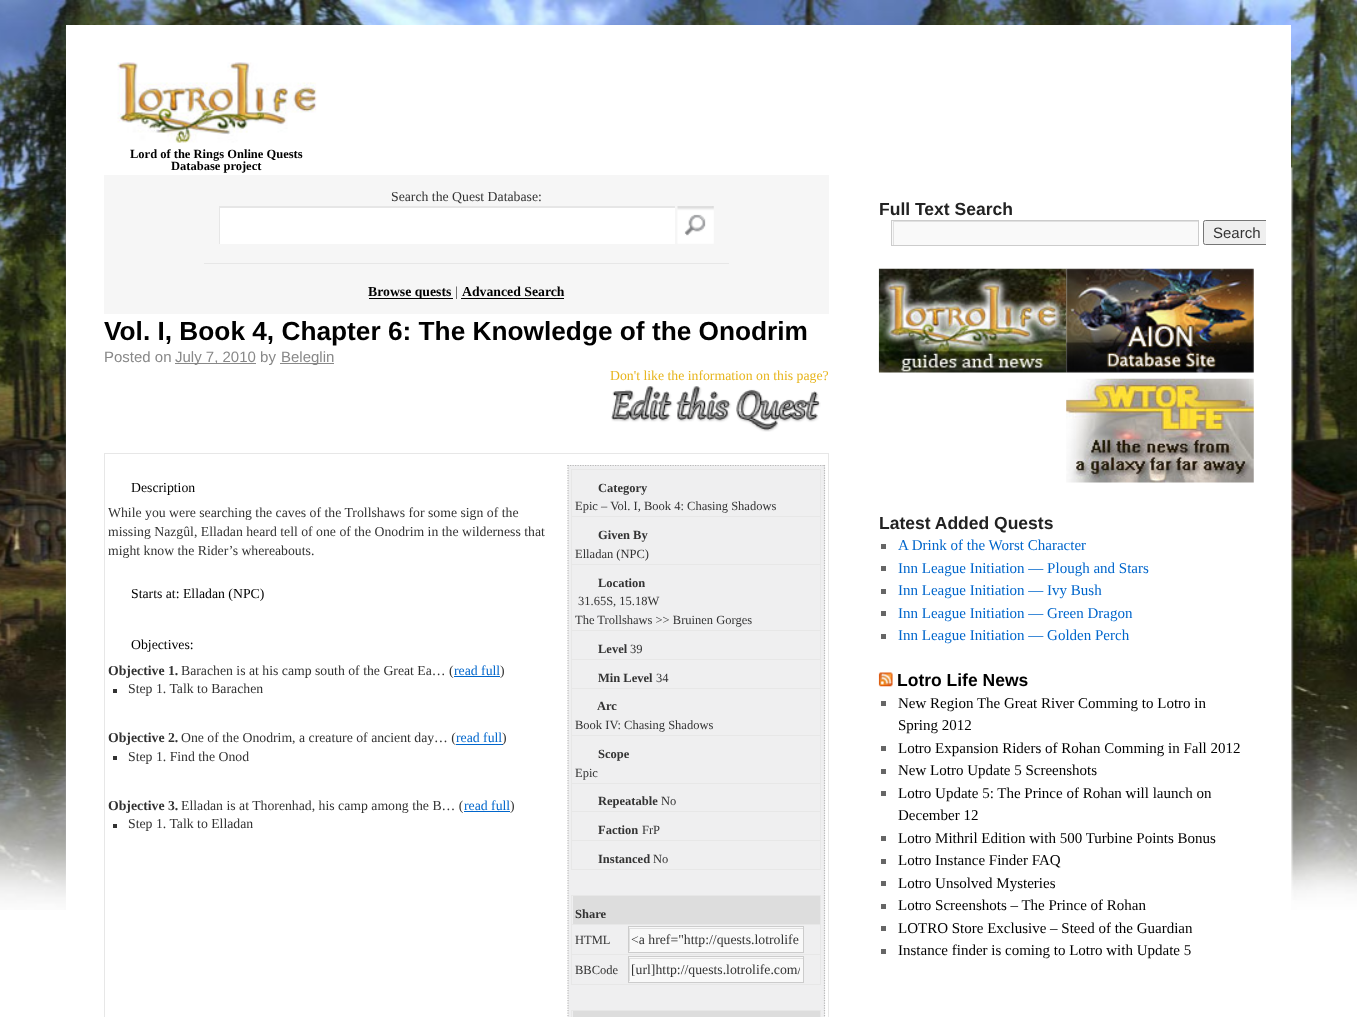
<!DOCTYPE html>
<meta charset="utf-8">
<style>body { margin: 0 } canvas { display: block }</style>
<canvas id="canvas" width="1357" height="1017"></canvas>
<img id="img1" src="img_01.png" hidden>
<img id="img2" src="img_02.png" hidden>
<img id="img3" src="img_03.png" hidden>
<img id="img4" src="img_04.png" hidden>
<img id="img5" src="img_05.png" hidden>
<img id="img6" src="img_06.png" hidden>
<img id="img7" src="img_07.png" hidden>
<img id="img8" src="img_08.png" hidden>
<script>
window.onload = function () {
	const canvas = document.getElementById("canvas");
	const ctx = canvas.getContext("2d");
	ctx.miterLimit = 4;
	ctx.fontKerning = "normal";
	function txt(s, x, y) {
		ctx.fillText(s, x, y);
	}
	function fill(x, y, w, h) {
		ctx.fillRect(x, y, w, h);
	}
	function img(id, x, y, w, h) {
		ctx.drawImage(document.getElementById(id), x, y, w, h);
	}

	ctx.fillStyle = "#FFFFFF";
	fill(0, 0, 1357, 1017);
	img("img1", 0, 0, 1357, 910);
	fill(66, 25, 1225, 885);
	img("img2", 117, 62, 200, 81);
	ctx.fillStyle = "#F6F6F6";
	fill(104, 175, 725, 139);
	ctx.fillStyle = "#FFFFFF";
	fill(220, 208, 455, 36);
	ctx.save();
	ctx.beginPath();
	ctx.rect(219, 206, 456, 38);
	ctx.clip();
	ctx.fillStyle = "#E6E6E6";
	ctx.beginPath();
	ctx.moveTo(95, 82);
	ctx.lineTo(799, 82);
	ctx.lineTo(799, 368);
	ctx.lineTo(95, 368);
	ctx.closePath();
	ctx.moveTo(220, 208);
	ctx.lineTo(676, 208);
	ctx.lineTo(676, 245);
	ctx.lineTo(220, 245);
	ctx.closePath();
	ctx.fill("evenodd");
	ctx.restore();
	img("img3", 677, 206, 37, 38);
	ctx.fillStyle = "#E7E7E7";
	fill(204, 263, 525, 1);
	ctx.fillStyle = "#000000";
	fill(369, 298, 84, 1);
	fill(461, 298, 103, 1);
	ctx.fillStyle = "#888888";
	fill(175, 363, 81, 1);
	fill(280, 363, 54, 1);
	img("img4", 611, 386, 210, 46);
	ctx.fillStyle = "#E7E7E7";
	fill(104, 453, 725, 1);
	fill(828, 453, 1, 564);
	fill(104, 453, 1, 564);
	ctx.fillStyle = "#0066CC";
	fill(454, 676, 46, 1);
	ctx.fillStyle = "#333333";
	fill(113, 689, 4, 4);
	ctx.fillStyle = "#0066CC";
	fill(456, 744, 47, 1);
	ctx.fillStyle = "#333333";
	fill(113, 756, 4, 4);
	ctx.fillStyle = "#0066CC";
	fill(464, 811, 46, 1);
	ctx.fillStyle = "#333333";
	fill(113, 824, 4, 4);
	ctx.fillStyle = "#EFEFF0";
	fill(568, 465, 257, 552);
	ctx.beginPath();
	ctx.moveTo(567.5, 465.5);
	ctx.lineTo(825, 465.5);
	ctx.strokeStyle = "#B9B9B9";
	ctx.lineWidth = 1.2;
	ctx.setLineDash([1.25, 1.25]);
	ctx.stroke();
	ctx.beginPath();
	ctx.moveTo(824.5, 465);
	ctx.lineTo(824.5, 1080);
	ctx.stroke();
	ctx.beginPath();
	ctx.moveTo(568, 465);
	ctx.lineTo(568, 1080);
	ctx.stroke();
	ctx.fillStyle = "#E7E7E7";
	fill(571, 469, 250, 1);
	fill(820, 469, 1, 401);
	fill(571, 869, 250, 1);
	fill(571, 469, 1, 401);
	fill(571, 516, 250, 1);
	fill(571, 564, 250, 1);
	fill(571, 630, 250, 1);
	fill(571, 659, 250, 1);
	fill(571, 688, 250, 1);
	fill(571, 735, 250, 1);
	fill(571, 783, 250, 1);
	fill(571, 811, 250, 1);
	fill(571, 840, 250, 1);
	fill(571, 895, 250, 1);
	fill(820, 895, 1, 90);
	fill(571, 984, 250, 1);
	fill(571, 895, 1, 90);
	ctx.fillStyle = "#DDDDDD";
	fill(573, 896, 247, 28);
	ctx.fillStyle = "#E7E7E7";
	fill(571, 924, 250, 1);
	ctx.fillStyle = "#F9F9F9";
	fill(629, 927, 174, 25);
	ctx.save();
	ctx.beginPath();
	ctx.rect(629, 928, 174, 23);
	ctx.clip();
	ctx.fillStyle = "#E0E0E0";
	ctx.beginPath();
	ctx.moveTo(505, 804);
	ctx.lineTo(926, 804);
	ctx.lineTo(926, 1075);
	ctx.lineTo(505, 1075);
	ctx.closePath();
	ctx.moveTo(630, 929);
	ctx.lineTo(804, 929);
	ctx.lineTo(804, 952);
	ctx.lineTo(630, 952);
	ctx.closePath();
	ctx.fill("evenodd");
	ctx.restore();
	ctx.strokeStyle = "#CCCCCC";
	ctx.lineWidth = 1;
	ctx.setLineDash([]);
	ctx.strokeRect(628.5, 926.5, 175, 26);
	ctx.fillStyle = "#E7E7E7";
	fill(571, 954, 250, 1);
	ctx.fillStyle = "#F9F9F9";
	fill(629, 957, 174, 25);
	ctx.save();
	ctx.beginPath();
	ctx.rect(629, 958, 174, 23);
	ctx.clip();
	ctx.fillStyle = "#E0E0E0";
	ctx.beginPath();
	ctx.moveTo(505, 834);
	ctx.lineTo(926, 834);
	ctx.lineTo(926, 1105);
	ctx.lineTo(505, 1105);
	ctx.closePath();
	ctx.moveTo(630, 959);
	ctx.lineTo(804, 959);
	ctx.lineTo(804, 982);
	ctx.lineTo(630, 982);
	ctx.closePath();
	ctx.fill("evenodd");
	ctx.restore();
	ctx.strokeRect(628.5, 956.5, 175, 26);
	ctx.fillStyle = "#E7E7E7";
	fill(571, 1010, 250, 1);
	ctx.fillStyle = "#DDDDDD";
	fill(573, 1011, 248, 6);
	ctx.fillStyle = "#E7E7E7";
	fill(820, 1010, 1, 7);
	fill(571, 1010, 1, 7);
	ctx.fillStyle = "#F9F9F9";
	fill(892, 221, 306, 24);
	ctx.save();
	ctx.beginPath();
	ctx.rect(893, 221, 305, 24);
	ctx.clip();
	ctx.fillStyle = "#E0E0E0";
	ctx.beginPath();
	ctx.moveTo(769, 98);
	ctx.lineTo(1321, 98);
	ctx.lineTo(1321, 369);
	ctx.lineTo(769, 369);
	ctx.closePath();
	ctx.moveTo(894, 222);
	ctx.lineTo(1199, 222);
	ctx.lineTo(1199, 246);
	ctx.lineTo(894, 246);
	ctx.closePath();
	ctx.fill("evenodd");
	ctx.restore();
	ctx.strokeRect(891.5, 220.5, 307, 25);
	ctx.fillStyle = "#EFEFEF";
	ctx.beginPath();
	ctx.roundRect(1203, 220, 63, 25, [2.5, 0, 0, 2.5]);
	ctx.fill();
	ctx.save();
	ctx.beginPath();
	ctx.rect(879, 175, 387, 809);
	ctx.clip();
	ctx.beginPath();
	ctx.roundRect(1203.5, 220.5, 66, 24, 2);
	ctx.strokeStyle = "#767676";
	ctx.stroke();
	ctx.restore();
	img("img5", 878, 268, 189, 105);
	img("img6", 1066, 268, 188, 105);
	img("img7", 1066, 378, 188, 105);
	ctx.fillStyle = "#666666";
	fill(881, 544, 5, 5);
	fill(881, 566, 5, 5);
	fill(881, 589, 5, 5);
	fill(881, 611, 5, 5);
	fill(881, 634, 5, 5);
	img("img8", 878, 672, 15, 15);
	fill(881, 701, 5, 5);
	fill(881, 746, 5, 5);
	fill(881, 769, 5, 5);
	fill(881, 791, 5, 5);
	fill(881, 836, 5, 5);
	fill(881, 859, 5, 5);
	fill(881, 881, 5, 5);
	fill(881, 904, 5, 5);
	fill(881, 926, 5, 5);
	fill(881, 949, 5, 5);
	ctx.font = "bold 12.5px Liberation Serif";
	ctx.fillStyle = "#000000";
	txt("Lord of the Rings Online Quests", 130, 158);
	txt("Database project", 171, 170);
	ctx.font = "13.75px Liberation Serif";
	ctx.fillStyle = "#333333";
	txt("Search the Quest Database:", 391, 201);
	ctx.font = "bold 13.75px Liberation Serif";
	ctx.fillStyle = "#000000";
	txt("Browse quests", 368, 296);
	ctx.font = "13.75px Liberation Serif";
	ctx.fillStyle = "#333333";
	txt("|", 455, 296);
	ctx.font = "bold 13.75px Liberation Serif";
	ctx.fillStyle = "#000000";
	txt("Advanced Search", 462, 296);
	ctx.font = "bold 26.25px Liberation Sans";
	txt("Vol. I, Book 4, Chapter 6: The Knowledge of the Onodrim", 104, 340);
	ctx.font = "15px Liberation Sans";
	ctx.fillStyle = "#888888";
	txt("Posted on", 104, 362);
	txt("July 7, 2010 by", 175, 362);
	txt("Beleglin", 281, 362);
	ctx.font = "13.75px Liberation Serif";
	ctx.fillStyle = "#E7B51D";
	txt("Don't like the information on this page?", 610, 380);
	ctx.fillStyle = "#000000";
	txt("Description", 131, 492);
	ctx.fillStyle = "#333333";
	txt("While you were searching the caves of the Trollshaws for some sign of the", 108, 517);
	txt("missing Nazgûl, Elladan heard tell of one of the Onodrim in the wilderness that", 108, 536);
	txt("might know the Rider’s whereabouts.", 108, 555);
	ctx.fillStyle = "#000000";
	txt("Starts at: Elladan (NPC)", 131, 598);
	txt("Objectives:", 131, 649);
	ctx.font = "bold 13.75px Liberation Serif";
	ctx.fillStyle = "#333333";
	txt("Objective 1.", 108, 675);
	ctx.font = "13.75px Liberation Serif";
	txt("Barachen is at his camp south of the Great Ea… (", 181, 675);
	ctx.fillStyle = "#0066CC";
	txt("read full", 454, 675);
	ctx.fillStyle = "#333333";
	txt(")", 500, 675);
	txt("Step 1. Talk to Barachen", 128, 693);
	ctx.font = "bold 13.75px Liberation Serif";
	txt("Objective 2.", 108, 742);
	ctx.font = "13.75px Liberation Serif";
	txt("One of the Onodrim, a creature of ancient day… (", 181, 742);
	ctx.fillStyle = "#0066CC";
	txt("read full", 456, 742);
	ctx.fillStyle = "#333333";
	txt(")", 502, 742);
	txt("Step 1. Find the Onod", 128, 761);
	ctx.font = "bold 13.75px Liberation Serif";
	txt("Objective 3.", 108, 810);
	ctx.font = "13.75px Liberation Serif";
	txt("Elladan is at Thorenhad, his camp among the B… (", 181, 810);
	ctx.fillStyle = "#0066CC";
	txt("read full", 464, 810);
	ctx.fillStyle = "#333333";
	txt(")", 510, 810);
	txt("Step 1. Talk to Elladan", 128, 828);
	ctx.font = "bold 12.5px Liberation Serif";
	txt("Category", 598, 492);
	ctx.font = "12.5px Liberation Serif";
	txt("Epic – Vol. I, Book 4: Chasing Shadows", 575, 510);
	ctx.font = "bold 12.5px Liberation Serif";
	txt("Given By", 598, 539);
	ctx.font = "12.5px Liberation Serif";
	txt("Elladan (NPC)", 575, 558);
	ctx.font = "bold 12.5px Liberation Serif";
	txt("Location", 598, 587);
	ctx.font = "12.5px Liberation Serif";
	txt("31.65S, 15.18W", 578, 605);
	txt("The Trollshaws >> Bruinen Gorges", 575, 624);
	ctx.font = "bold 12.5px Liberation Serif";
	txt("Level", 598, 653);
	ctx.font = "12.5px Liberation Serif";
	txt("39", 630, 653);
	ctx.font = "bold 12.5px Liberation Serif";
	txt("Min Level", 598, 682);
	ctx.font = "12.5px Liberation Serif";
	txt("34", 656, 682);
	ctx.font = "bold 12.5px Liberation Serif";
	txt("Arc", 597, 710);
	ctx.font = "12.5px Liberation Serif";
	txt("Book IV: Chasing Shadows", 575, 729);
	ctx.font = "bold 12.5px Liberation Serif";
	txt("Scope", 598, 758);
	ctx.font = "12.5px Liberation Serif";
	txt("Epic", 575, 777);
	ctx.font = "bold 12.5px Liberation Serif";
	txt("Repeatable", 598, 805);
	ctx.font = "12.5px Liberation Serif";
	txt("No", 661, 805);
	ctx.font = "bold 12.5px Liberation Serif";
	txt("Faction", 598, 834);
	ctx.font = "12.5px Liberation Serif";
	txt("FrP", 642, 834);
	ctx.font = "bold 12.5px Liberation Serif";
	txt("Instanced", 598, 863);
	ctx.font = "12.5px Liberation Serif";
	txt("No", 653, 863);
	ctx.font = "bold 12.5px Liberation Serif";
	txt("Share", 575, 918);
	ctx.font = "12.5px Liberation Serif";
	txt("HTML", 575, 944);
	ctx.font = "13.75px Liberation Serif";
	txt("<a href=\"http://quests.lotrolife", 631, 944);
	ctx.font = "12.5px Liberation Serif";
	txt("BBCode", 575, 974);
	ctx.save();
	ctx.beginPath();
	ctx.rect(631, 960, 169, 19);
	ctx.clip();
	ctx.font = "13.75px Liberation Serif";
	txt("[url]http://quests.lotrolife.com/", 631, 974);
	ctx.restore();
	ctx.font = "bold 17.5px Liberation Sans";
	ctx.fillStyle = "#222222";
	txt("Full Text Search", 879, 215);
	ctx.font = "15px Liberation Sans";
	ctx.fillStyle = "#333333";
	txt("Search", 1213, 238);
	ctx.font = "bold 17.5px Liberation Sans";
	ctx.fillStyle = "#222222";
	txt("Latest Added Quests", 879, 529);
	ctx.font = "15px Liberation Serif";
	ctx.fillStyle = "#0066CC";
	txt("A Drink of the Worst Character", 898, 550);
	txt("Inn League Initiation — Plough and Stars", 898, 573);
	txt("Inn League Initiation — Ivy Bush", 898, 595);
	txt("Inn League Initiation — Green Dragon", 898, 618);
	txt("Inn League Initiation — Golden Perch", 898, 640);
	ctx.font = "bold 17.5px Liberation Sans";
	ctx.fillStyle = "#000000";
	txt("Lotro Life News", 897, 686);
	ctx.font = "15px Liberation Serif";
	txt("New Region The Great River Comming to Lotro in", 898, 708);
	txt("Spring 2012", 898, 730);
	txt("Lotro Expansion Riders of Rohan Comming in Fall 2012", 898, 753);
	txt("New Lotro Update 5 Screenshots", 898, 775);
	txt("Lotro Update 5: The Prince of Rohan will launch on", 898, 798);
	txt("December 12", 898, 820);
	txt("Lotro Mithril Edition with 500 Turbine Points Bonus", 898, 843);
	txt("Lotro Instance Finder FAQ", 898, 865);
	txt("Lotro Unsolved Mysteries", 898, 888);
	txt("Lotro Screenshots – The Prince of Rohan", 898, 910);
	txt("LOTRO Store Exclusive – Steed of the Guardian", 898, 933);
	txt("Instance finder is coming to Lotro with Update 5", 898, 955);
};
</script>
